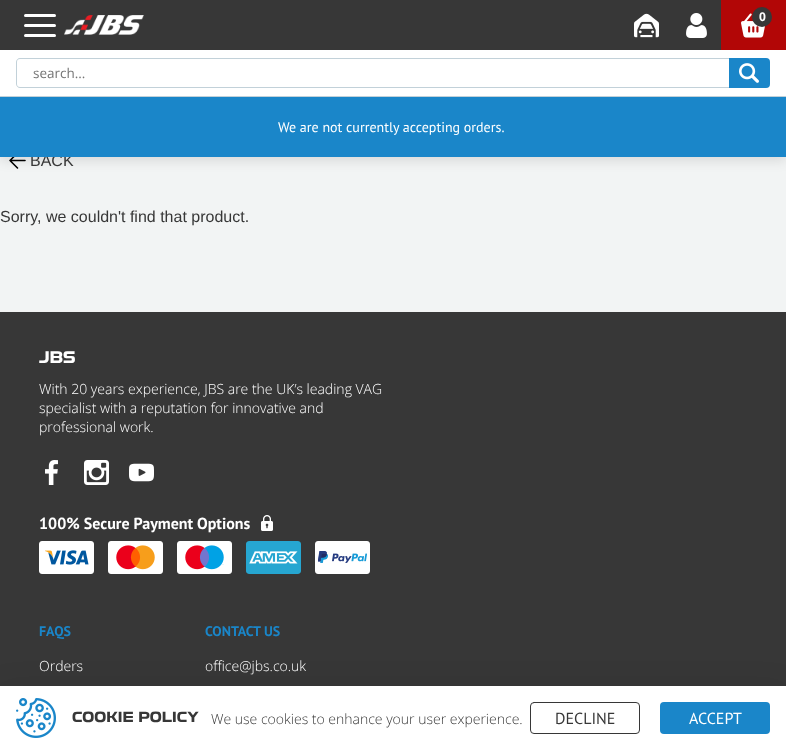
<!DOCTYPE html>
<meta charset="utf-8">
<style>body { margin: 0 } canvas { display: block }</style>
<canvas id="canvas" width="786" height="750"></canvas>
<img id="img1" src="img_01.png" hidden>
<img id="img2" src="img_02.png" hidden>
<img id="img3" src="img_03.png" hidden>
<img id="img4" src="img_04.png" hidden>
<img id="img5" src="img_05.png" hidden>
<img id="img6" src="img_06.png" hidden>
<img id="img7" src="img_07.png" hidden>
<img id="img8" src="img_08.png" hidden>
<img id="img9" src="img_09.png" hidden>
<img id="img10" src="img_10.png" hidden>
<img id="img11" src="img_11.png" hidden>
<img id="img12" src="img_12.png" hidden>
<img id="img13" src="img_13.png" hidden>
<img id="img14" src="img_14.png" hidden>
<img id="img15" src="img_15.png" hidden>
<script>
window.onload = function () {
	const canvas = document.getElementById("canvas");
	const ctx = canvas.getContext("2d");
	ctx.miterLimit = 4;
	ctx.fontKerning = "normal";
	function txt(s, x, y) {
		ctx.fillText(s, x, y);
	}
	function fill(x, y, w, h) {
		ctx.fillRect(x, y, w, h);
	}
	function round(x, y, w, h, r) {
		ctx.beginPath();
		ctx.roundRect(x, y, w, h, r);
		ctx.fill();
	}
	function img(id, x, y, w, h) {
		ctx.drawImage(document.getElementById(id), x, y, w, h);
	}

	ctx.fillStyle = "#F2F4F4";
	fill(0, 0, 786, 750);
	ctx.beginPath();
	ctx.moveTo(25, 160.5);
	ctx.lineTo(10, 160.5);
	ctx.moveTo(17.5, 168);
	ctx.lineTo(10, 160.5);
	ctx.lineTo(17.5, 153);
	ctx.strokeStyle = "#000000";
	ctx.lineWidth = 1.6;
	ctx.lineCap = "round";
	ctx.lineJoin = "round";
	ctx.stroke();
	ctx.fillStyle = "rgba(0, 0, 0, 0.1)";
	ctx.filter = "blur(6px)";
	ctx.beginPath();
	ctx.rect(0, 4, 786, 157);
	ctx.fill();
	ctx.filter = "none";
	ctx.fillStyle = "#373737";
	fill(0, 0, 721, 50);
	ctx.fillStyle = "#FFFFFF";
	round(24, 14, 32, 3, 1.5);
	round(24, 24, 32, 3, 1.5);
	round(24, 34, 32, 3, 1.5);
	img("img1", 64, 15, 80, 20);
	img("img2", 634, 13, 25, 25);
	img("img3", 686, 13, 21, 25);
	ctx.fillStyle = "#B20606";
	fill(721, 0, 65, 50);
	img("img4", 741, 13, 24, 25);
	ctx.fillStyle = "#373737";
	ctx.beginPath();
	ctx.arc(762, 17, 10, 0, Math.PI * 2);
	ctx.fill();
	ctx.fillStyle = "#FFFFFF";
	fill(0, 50, 786, 46);
	ctx.fillStyle = "#C2D1D9";
	fill(0, 96, 786, 1);
	ctx.beginPath();
	ctx.moveTo(20, 58);
	ctx.lineTo(729, 58);
	ctx.lineTo(729, 88);
	ctx.lineTo(20, 88);
	ctx.bezierCurveTo(18, 88, 16, 86, 16, 84);
	ctx.lineTo(16, 62);
	ctx.bezierCurveTo(16, 60, 18, 58, 20, 58);
	ctx.closePath();
	ctx.moveTo(20, 59);
	ctx.lineTo(729, 59);
	ctx.lineTo(729, 87);
	ctx.lineTo(20, 87);
	ctx.bezierCurveTo(18, 87, 17, 86, 17, 84);
	ctx.lineTo(17, 62);
	ctx.bezierCurveTo(17, 60, 18, 59, 20, 59);
	ctx.closePath();
	ctx.fill("evenodd");
	ctx.fillStyle = "#1A86C9";
	ctx.beginPath();
	ctx.roundRect(729, 58, 41, 30, [0, 4, 4, 0]);
	ctx.fill();
	img("img5", 739, 63, 20, 20);
	ctx.fillStyle = "#373737";
	fill(0, 312, 786, 374);
	img("img6", 45, 460, 13, 25);
	img("img7", 84, 460, 25, 25);
	img("img8", 129, 463, 25, 19);
	img("img9", 261, 515, 12, 16);
	img("img10", 39, 541, 55, 33);
	img("img11", 108, 541, 55, 33);
	img("img12", 177, 541, 55, 33);
	img("img13", 246, 541, 55, 33);
	img("img14", 315, 541, 55, 33);
	ctx.fillStyle = "rgba(0, 0, 0, 0.1)";
	ctx.filter = "blur(15px)";
	ctx.beginPath();
	ctx.rect(0, 690, 786, 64);
	ctx.fill();
	ctx.filter = "none";
	ctx.fillStyle = "#FFFFFF";
	fill(0, 686, 786, 64);
	img("img15", 16, 698, 40, 40);
	ctx.beginPath();
	ctx.roundRect(530.5, 702.5, 109, 31, 3.5);
	ctx.strokeStyle = "#373737";
	ctx.lineWidth = 1;
	ctx.lineJoin = "miter";
	ctx.stroke();
	ctx.fillStyle = "#1A86C9";
	round(660, 702, 110, 32, 4);
	ctx.font = "bold 12px Open Sans";
	ctx.fillStyle = "#FFFFFF";
	txt("0", 759, 21);
	ctx.font = "13.5px Open Sans";
	ctx.fillStyle = "#757575";
	txt("search...", 33, 78);
	ctx.font = "16px Liberation Sans";
	ctx.fillStyle = "#373737";
	txt("BACK", 30, 166);
	ctx.fillStyle = "#1A86C9";
	fill(0, 97, 786, 60);
	ctx.font = "14px PT Sans";
	ctx.fillStyle = "#FFFFFF";
	txt("We are not currently accepting orders.", 278, 132);
	ctx.font = "16px Liberation Sans";
	ctx.fillStyle = "#373737";
	txt("Sorry, we couldn't find that product.", 0, 222);
	ctx.font = "bold 16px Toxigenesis";
	ctx.fillStyle = "#FFFFFF";
	txt("JBS", 39, 363);
	ctx.font = "300 14px Open Sans";
	txt("With 20 years experience, JBS are the UK’s leading VAG", 39, 394);
	txt("specialist with a reputation for innovative and", 39, 413);
	txt("professional work.", 39, 432);
	ctx.font = "bold 16px PT Sans";
	txt("100% Secure Payment Options", 39, 529);
	ctx.font = "bold 14px PT Sans";
	ctx.fillStyle = "#1A86C9";
	txt("FAQS", 39, 636);
	ctx.font = "300 14px Open Sans";
	ctx.fillStyle = "#FFFFFF";
	txt("Orders", 39, 671);
	ctx.font = "bold 14px PT Sans";
	ctx.fillStyle = "#1A86C9";
	txt("CONTACT US", 205, 636);
	ctx.font = "300 14px Open Sans";
	ctx.fillStyle = "#FFFFFF";
	txt("office@jbs.co.uk", 205, 671);
	ctx.font = "bold 14px Toxigenesis";
	ctx.fillStyle = "#373737";
	txt("COOKIE POLICY", 72, 722);
	ctx.font = "300 14px Open Sans";
	txt("We use cookies to enhance your user experience.", 211, 724);
	ctx.font = "16px PT Sans";
	txt("DECLINE", 555, 724);
	ctx.fillStyle = "#FFFFFF";
	txt("ACCEPT", 689, 724);
};
</script>
